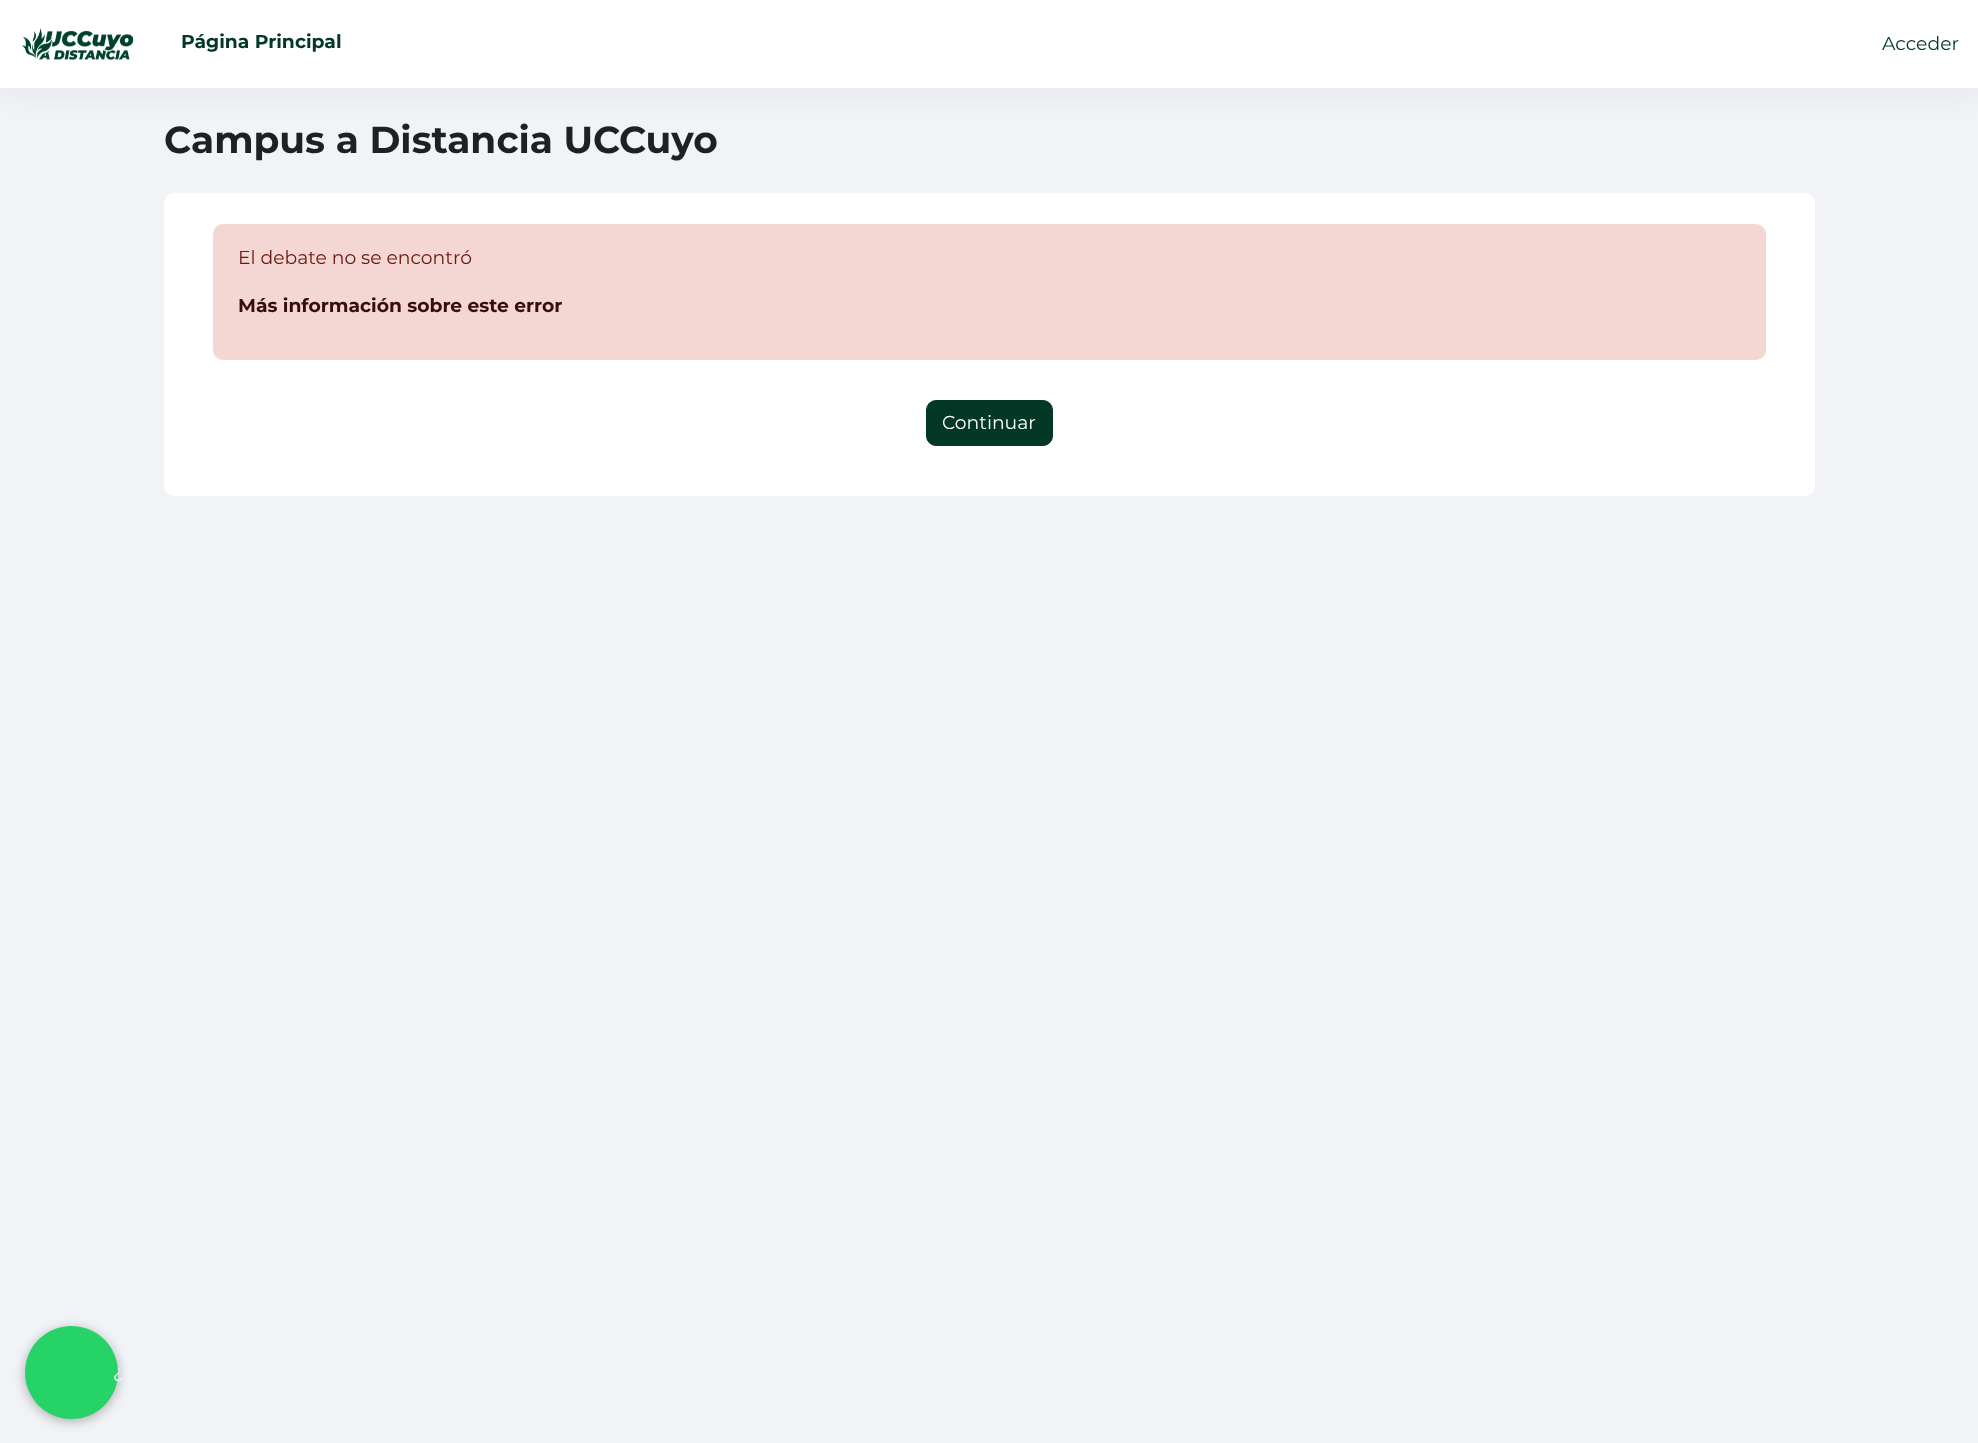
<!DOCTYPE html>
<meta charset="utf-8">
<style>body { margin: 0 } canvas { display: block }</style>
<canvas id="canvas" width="1978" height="1443"></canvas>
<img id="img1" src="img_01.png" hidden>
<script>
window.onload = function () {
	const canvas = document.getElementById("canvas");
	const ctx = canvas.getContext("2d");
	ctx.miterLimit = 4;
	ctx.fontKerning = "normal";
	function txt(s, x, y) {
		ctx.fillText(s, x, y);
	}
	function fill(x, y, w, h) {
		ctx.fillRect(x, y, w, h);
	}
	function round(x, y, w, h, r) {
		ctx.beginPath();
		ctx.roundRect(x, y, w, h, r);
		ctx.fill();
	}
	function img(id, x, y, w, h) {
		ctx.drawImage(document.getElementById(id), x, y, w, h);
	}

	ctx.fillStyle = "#F2F3F7";
	fill(0, 0, 1978, 1443);
	ctx.fillStyle = "rgba(140, 152, 164, 0.13)";
	ctx.filter = "blur(15px)";
	ctx.beginPath();
	ctx.rect(0, 8, 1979, 87);
	ctx.fill();
	ctx.filter = "none";
	ctx.fillStyle = "#FFFFFF";
	fill(0, 0, 1978, 88);
	img("img1", 22, 28, 112, 33);
	round(164, 193, 1651, 303, 10);
	ctx.fillStyle = "#F4D6D2";
	round(213, 224, 1553, 136, 10);
	ctx.fillStyle = "#023825";
	ctx.beginPath();
	ctx.roundRect(926.5, 400.5, 126, 45, 9.5);
	ctx.fill();
	ctx.strokeStyle = "#023825";
	ctx.stroke();
	ctx.fillStyle = "rgba(0, 0, 0, 0.3)";
	ctx.filter = "blur(6px)";
	ctx.beginPath();
	ctx.roundRect(25, 1329, 93, 92, 46);
	ctx.fill();
	ctx.filter = "none";
	ctx.fillStyle = "#25D366";
	ctx.beginPath();
	ctx.arc(71.5, 1372.5, 46.5, 0, Math.PI * 2);
	ctx.fill();
	ctx.font = "bold 18.75px Montserrat";
	ctx.fillStyle = "#023825";
	txt("Página Principal", 181, 48);
	ctx.font = "18.75px Montserrat";
	txt("Acceder", 1882, 50);
	ctx.font = "bold 37.5px Montserrat";
	ctx.fillStyle = "#1D2125";
	txt("Campus a Distancia UCCuyo", 164, 153);
	ctx.font = "18.75px Montserrat";
	ctx.fillStyle = "#691911";
	txt("El debate no se encontró", 238, 264);
	ctx.font = "bold 18.75px Montserrat";
	ctx.fillStyle = "#390E09";
	txt("Más información sobre este error", 238, 312);
	ctx.font = "18.75px Montserrat";
	ctx.fillStyle = "#FFFFFF";
	txt("Continuar", 942, 429);
	ctx.font = "18px Liberation Sans";
	ctx.fillStyle = "#E7F0EF";
	txt("¿", 113, 1378);
};
</script>
